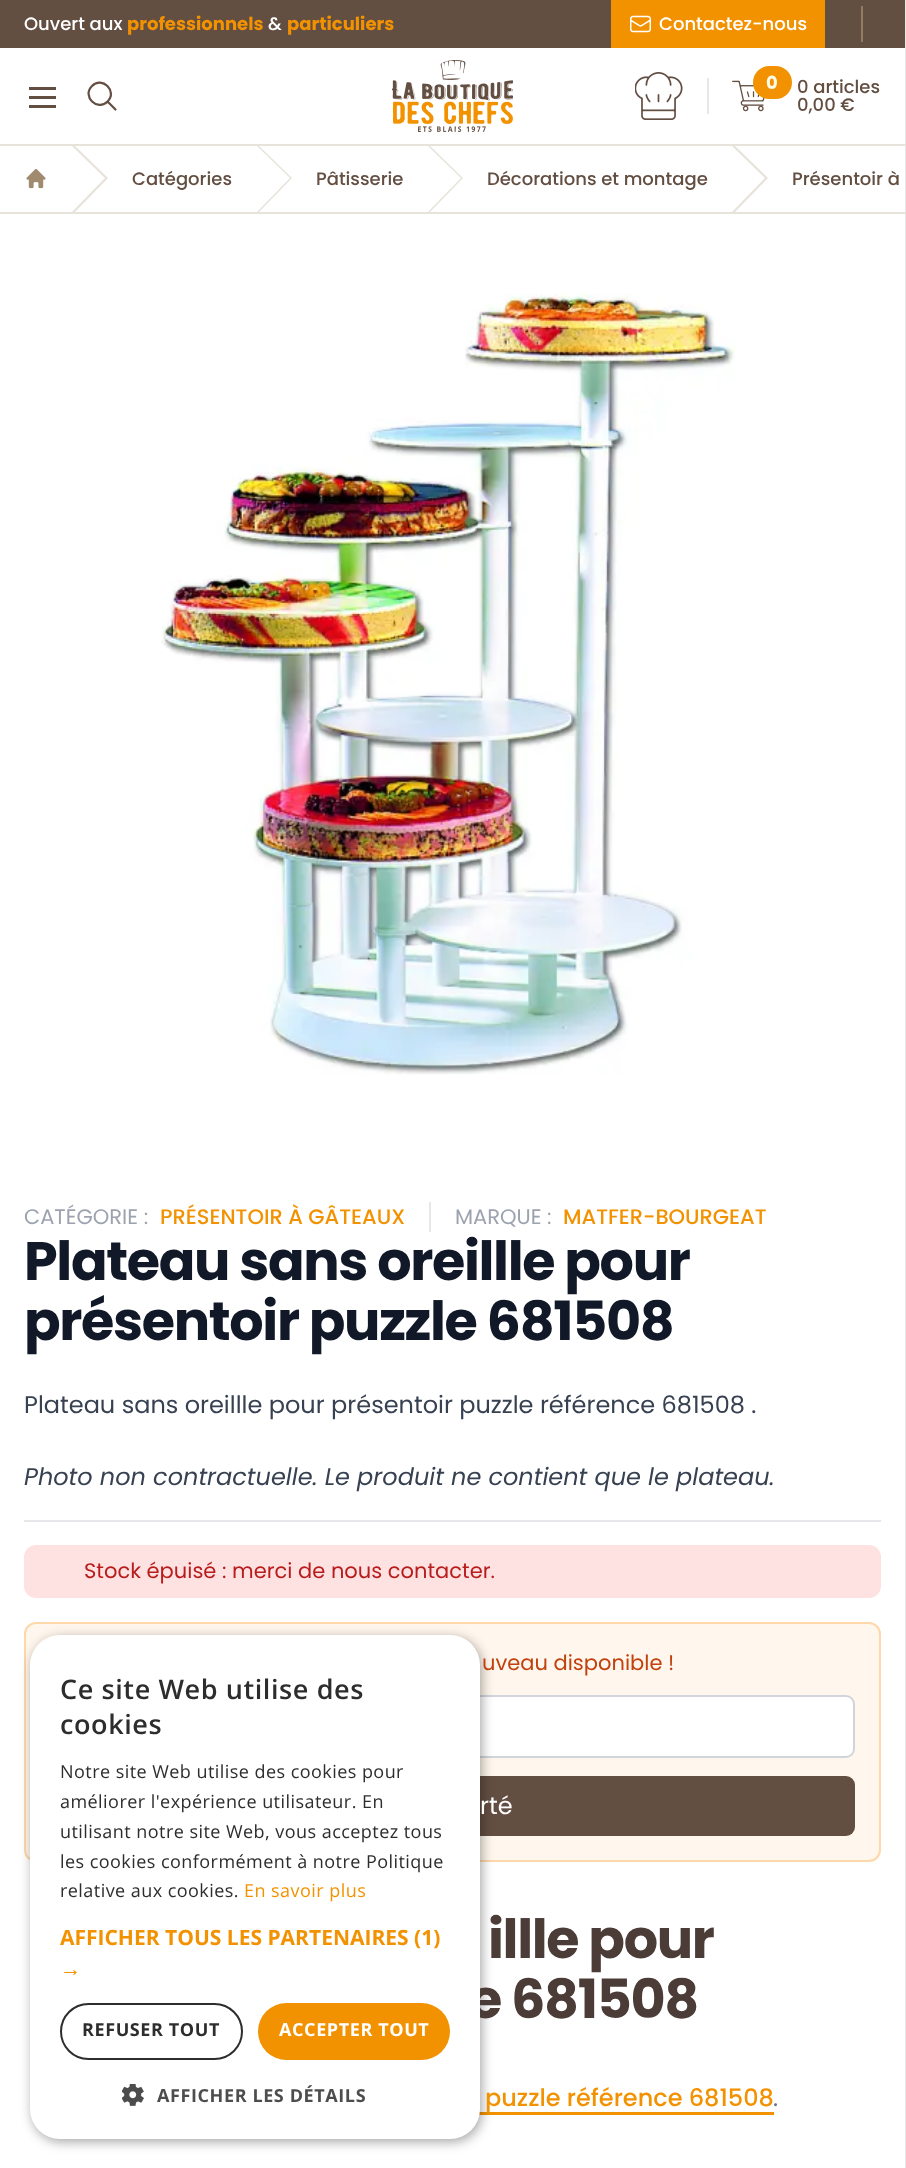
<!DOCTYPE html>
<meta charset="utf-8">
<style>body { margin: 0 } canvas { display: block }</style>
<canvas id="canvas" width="906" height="2168"></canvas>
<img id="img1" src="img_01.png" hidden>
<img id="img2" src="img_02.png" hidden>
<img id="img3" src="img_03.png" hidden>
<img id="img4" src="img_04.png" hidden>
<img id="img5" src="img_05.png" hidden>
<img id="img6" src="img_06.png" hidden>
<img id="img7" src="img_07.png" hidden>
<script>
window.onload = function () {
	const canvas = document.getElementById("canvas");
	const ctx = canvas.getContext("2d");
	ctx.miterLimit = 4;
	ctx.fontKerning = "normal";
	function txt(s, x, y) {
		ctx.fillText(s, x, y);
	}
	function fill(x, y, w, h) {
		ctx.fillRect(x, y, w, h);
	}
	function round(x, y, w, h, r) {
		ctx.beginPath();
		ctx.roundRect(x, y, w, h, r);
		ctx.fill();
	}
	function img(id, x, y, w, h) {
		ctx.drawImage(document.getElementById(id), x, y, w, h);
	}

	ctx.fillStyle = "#FFFFFF";
	fill(0, 0, 906, 2168);
	ctx.fillStyle = "#E6E6E6";
	fill(905, 0, 1, 2168);
	ctx.fillStyle = "#634E42";
	fill(0, 0, 905, 48);
	ctx.fillStyle = "#F39200";
	fill(611, 0, 214, 48);
	img("img1", 630, 15, 21, 18);
	ctx.fillStyle = "#927B60";
	fill(861, 6, 2, 36);
	ctx.fillStyle = "#E7E3DA";
	fill(0, 144, 905, 2);
	ctx.fillStyle = "#634E42";
	fill(29, 87, 27, 3);
	fill(29, 96, 27, 3);
	fill(29, 105, 27, 3);
	ctx.beginPath();
	ctx.moveTo(115.5, 109.5);
	ctx.lineTo(107.5, 101.5);
	ctx.moveTo(107.5, 101.5);
	ctx.bezierCurveTo(118, 91.5, 102, 75.5, 92, 86);
	ctx.bezierCurveTo(81.5, 96, 97.5, 112, 107.5, 101.5);
	ctx.closePath();
	ctx.strokeStyle = "#634E42";
	ctx.lineWidth = 2.2;
	ctx.lineCap = "round";
	ctx.lineJoin = "round";
	ctx.stroke();
	img("img2", 392, 60, 121, 72);
	img("img3", 635, 72, 48, 48);
	ctx.fillStyle = "#E5E7EB";
	fill(707, 78, 2, 36);
	img("img4", 732, 80, 33, 32);
	ctx.fillStyle = "#F39200";
	ctx.beginPath();
	ctx.roundRect(754, 67, 37, 31, 15.5);
	ctx.fill();
	ctx.strokeStyle = "#F39200";
	ctx.lineWidth = 2;
	ctx.lineJoin = "miter";
	ctx.stroke();
	ctx.fillStyle = "#E7E3DA";
	fill(0, 212, 905, 2);
	img("img5", 26, 169, 20, 20);
	ctx.beginPath();
	ctx.moveTo(72, 146);
	ctx.lineTo(105, 178);
	ctx.lineTo(72, 212);
	ctx.lineTo(75, 212);
	ctx.lineTo(108, 178);
	ctx.lineTo(75, 146);
	ctx.closePath();
	ctx.fill();
	ctx.beginPath();
	ctx.moveTo(257, 146);
	ctx.lineTo(290, 178);
	ctx.lineTo(257, 212);
	ctx.lineTo(259, 212);
	ctx.lineTo(292, 178);
	ctx.lineTo(259, 146);
	ctx.closePath();
	ctx.fill();
	ctx.beginPath();
	ctx.moveTo(428, 146);
	ctx.lineTo(461, 178);
	ctx.lineTo(428, 212);
	ctx.lineTo(430, 212);
	ctx.lineTo(463, 178);
	ctx.lineTo(430, 146);
	ctx.closePath();
	ctx.fill();
	ctx.beginPath();
	ctx.moveTo(732, 146);
	ctx.lineTo(765, 178);
	ctx.lineTo(732, 212);
	ctx.lineTo(735, 212);
	ctx.lineTo(768, 178);
	ctx.lineTo(735, 146);
	ctx.closePath();
	ctx.fill();
	img("img6", 161, 293, 576, 782);
	ctx.fillStyle = "#E5E7EB";
	fill(429, 1202, 2, 30);
	fill(24, 1520, 857, 2);
	ctx.fillStyle = "#FEE2E2";
	round(24, 1545, 857, 53, 12);
	ctx.fillStyle = "#FFF7ED";
	ctx.beginPath();
	ctx.roundRect(25, 1623, 855, 238, 11);
	ctx.fill();
	ctx.strokeStyle = "#FED7AA";
	ctx.stroke();
	ctx.fillStyle = "#FFFFFF";
	ctx.beginPath();
	ctx.roundRect(51, 1696, 803, 61, 8);
	ctx.fill();
	ctx.strokeStyle = "#D1D5DB";
	ctx.stroke();
	ctx.fillStyle = "#634E42";
	round(50, 1776, 805, 60, 9);
	ctx.fillStyle = "#F39200";
	fill(479, 2112, 295, 3);
	ctx.fillStyle = "rgba(0, 0, 0, 0.35)";
	ctx.filter = "blur(6px)";
	ctx.beginPath();
	ctx.roundRect(32, 1638, 450, 504, 30);
	ctx.fill();
	ctx.filter = "none";
	ctx.font = "500 18px Poppins";
	ctx.fillStyle = "#FFFFFF";
	txt("Ouvert aux", 24, 30);
	ctx.font = "bold 18px Poppins";
	ctx.fillStyle = "#F39200";
	txt("professionnels", 127, 30);
	ctx.font = "500 18px Poppins";
	ctx.fillStyle = "#FFFFFF";
	txt("&", 268, 30);
	ctx.font = "bold 18px Poppins";
	ctx.fillStyle = "#F39200";
	txt("particuliers", 287, 30);
	ctx.font = "500 18px Poppins";
	ctx.fillStyle = "#FFFFFF";
	txt("Contactez-nous", 659, 30);
	ctx.font = "bold 18px Poppins";
	ctx.fillStyle = "#FFFBEA";
	txt("0", 766, 89);
	ctx.font = "500 18px Poppins";
	ctx.fillStyle = "#634E42";
	txt("0 articles", 797, 93);
	txt("0,00 €", 797, 111);
	txt("Catégories", 132, 185);
	txt("Pâtisserie", 316, 185);
	txt("Décorations et montage", 487, 185);
	txt("Présentoir à", 792, 185);
	ctx.font = "21px Poppins";
	ctx.fillStyle = "#9CA3AF";
	txt("CATÉGORIE :", 24, 1224);
	ctx.font = "500 21px Poppins";
	ctx.fillStyle = "#F39200";
	txt("PRÉSENTOIR À GÂTEAUX", 160, 1224);
	ctx.font = "21px Poppins";
	ctx.fillStyle = "#9CA3AF";
	txt("MARQUE :", 455, 1224);
	ctx.font = "500 21px Poppins";
	ctx.fillStyle = "#F39200";
	txt("MATFER-BOURGEAT", 563, 1224);
	ctx.letterSpacing = "-1.35px";
	ctx.font = "bold 54px Poppins";
	ctx.fillStyle = "#111827";
	txt("Plateau sans oreillle pour", 24, 1280);
	txt("présentoir puzzle 681508", 24, 1340);
	ctx.letterSpacing = "0px";
	ctx.font = "24px Poppins";
	ctx.fillStyle = "#374151";
	txt("Plateau sans oreillle pour présentoir puzzle référence 681508 .", 24, 1413);
	ctx.font = "italic 24px Poppins";
	txt("Photo non contractuelle. Le produit ne contient que le plateau.", 24, 1485);
	ctx.font = "21px Poppins";
	ctx.fillStyle = "#B91C1C";
	txt("Stock épuisé : merci de nous contacter.", 84, 1578);
	ctx.fillStyle = "#C2410C";
	txt("uveau disponible !", 482, 1670);
	ctx.font = "24px Poppins";
	ctx.fillStyle = "#FFFFFF";
	txt("rté", 480, 1814);
	ctx.letterSpacing = "-1.35px";
	ctx.font = "bold 54px Poppins";
	ctx.fillStyle = "#4C3C37";
	txt("illle pour", 488, 1958);
	txt("e 681508", 469, 2018);
	ctx.letterSpacing = "0px";
	ctx.font = "500 24px Poppins";
	ctx.fillStyle = "#F39200";
	txt("puzzle référence 681508", 485, 2106);
	ctx.font = "24px Poppins";
	ctx.fillStyle = "#6B7280";
	txt(".", 773, 2106);
	ctx.fillStyle = "#FFFFFF";
	round(30, 1635, 450, 504, 30);
	ctx.letterSpacing = "0.6px";
	ctx.font = "600 27px Open Sans";
	ctx.fillStyle = "#2D2D2D";
	txt("Ce site Web utilise des", 60, 1699);
	txt("cookies", 60, 1734);
	ctx.letterSpacing = "0.45px";
	ctx.font = "18px Open Sans";
	txt("Notre site Web utilise des cookies pour", 60, 1778);
	txt("améliorer l'expérience utilisateur. En", 60, 1808);
	txt("utilisant notre site Web, vous acceptez tous", 60, 1838);
	txt("les cookies conformément à notre Politique", 60, 1868);
	txt("relative aux cookies.", 60, 1897);
	ctx.fillStyle = "#F39200";
	txt("En savoir plus", 244, 1897);
	ctx.letterSpacing = "0px";
	ctx.font = "bold 21px Open Sans";
	txt("AFFICHER TOUS LES PARTENAIRES (1)", 60, 1945);
	ctx.font = "bold 21px Liberation Sans";
	txt("→", 60, 1976);
	ctx.beginPath();
	ctx.roundRect(61, 2004, 181, 55, 27.5);
	ctx.strokeStyle = "#2D2D2D";
	ctx.stroke();
	ctx.letterSpacing = "0.6px";
	ctx.font = "bold 18px Open Sans";
	ctx.fillStyle = "#2D2D2D";
	txt("REFUSER TOUT", 82, 2036);
	ctx.fillStyle = "#F39200";
	round(258, 2003, 192, 57, 28.5);
	ctx.fillStyle = "#FFFFFF";
	txt("ACCEPTER TOUT", 279, 2036);
	img("img7", 122, 2084, 22, 22);
	ctx.fillStyle = "#4D4D4D";
	txt("AFFICHER LES DÉTAILS", 157, 2102);
};
</script>
